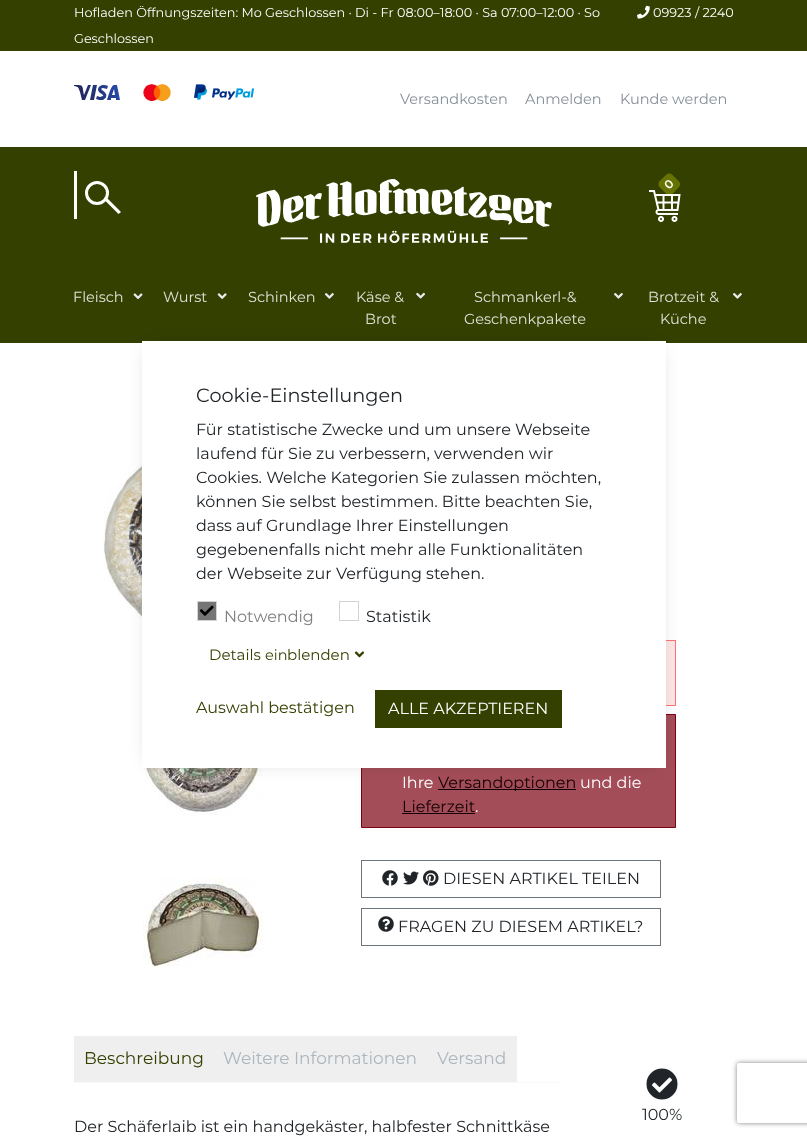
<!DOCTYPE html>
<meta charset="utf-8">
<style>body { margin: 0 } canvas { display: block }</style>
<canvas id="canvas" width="807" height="1137"></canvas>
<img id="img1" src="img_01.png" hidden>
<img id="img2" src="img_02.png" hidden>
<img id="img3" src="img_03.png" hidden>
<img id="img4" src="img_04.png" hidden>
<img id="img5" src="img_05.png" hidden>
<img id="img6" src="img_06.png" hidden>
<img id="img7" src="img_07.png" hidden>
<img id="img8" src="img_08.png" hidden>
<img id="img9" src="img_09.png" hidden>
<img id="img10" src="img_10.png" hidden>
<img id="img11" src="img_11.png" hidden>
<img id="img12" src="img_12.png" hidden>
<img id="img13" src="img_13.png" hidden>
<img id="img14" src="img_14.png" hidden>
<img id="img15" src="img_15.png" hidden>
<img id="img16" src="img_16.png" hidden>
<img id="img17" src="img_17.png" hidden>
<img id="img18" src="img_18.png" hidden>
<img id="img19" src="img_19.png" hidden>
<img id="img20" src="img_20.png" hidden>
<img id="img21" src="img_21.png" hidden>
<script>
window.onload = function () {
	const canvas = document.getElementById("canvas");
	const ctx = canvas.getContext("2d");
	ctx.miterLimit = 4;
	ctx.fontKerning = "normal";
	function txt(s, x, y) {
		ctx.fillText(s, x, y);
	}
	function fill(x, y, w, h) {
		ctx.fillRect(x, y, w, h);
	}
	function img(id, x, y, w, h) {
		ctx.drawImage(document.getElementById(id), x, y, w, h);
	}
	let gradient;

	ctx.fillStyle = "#FFFFFF";
	fill(0, 0, 807, 1137);
	ctx.fillStyle = "#334000";
	fill(0, 147, 807, 196);
	fill(0, 0, 807, 51);
	img("img1", 637, 5, 13, 14);
	gradient = ctx.createLinearGradient(78, 99, 117, 85);
	gradient.addColorStop(0, "#222357");
	gradient.addColorStop(1, "#254AA5");
	ctx.fillStyle = gradient;
	ctx.beginPath();
	ctx.moveTo(98, 90);
	ctx.bezierCurveTo(98, 85, 104, 84, 108, 86);
	ctx.lineTo(107, 89);
	ctx.lineTo(103, 88);
	ctx.bezierCurveTo(97, 89, 109, 92, 106, 97);
	ctx.bezierCurveTo(106, 98, 104, 99, 103, 100);
	ctx.bezierCurveTo(101, 100, 98, 100, 96, 99);
	ctx.lineTo(97, 96);
	ctx.lineTo(100, 97);
	ctx.lineTo(103, 96);
	ctx.bezierCurveTo(104, 95, 100, 93, 99, 92);
	ctx.closePath();
	ctx.moveTo(88, 85);
	ctx.lineTo(91, 85);
	ctx.lineTo(85, 100);
	ctx.lineTo(82, 100);
	ctx.lineTo(80, 92);
	ctx.bezierCurveTo(78, 87, 79, 87, 74, 86);
	ctx.lineTo(74, 85);
	ctx.bezierCurveTo(84, 85, 82, 85, 84, 95);
	ctx.closePath();
	ctx.moveTo(93, 85);
	ctx.lineTo(97, 85);
	ctx.lineTo(94, 100);
	ctx.lineTo(90, 100);
	ctx.closePath();
	ctx.moveTo(114, 85);
	ctx.lineTo(117, 85);
	ctx.lineTo(120, 100);
	ctx.lineTo(116, 100);
	ctx.lineTo(116, 98);
	ctx.lineTo(111, 98);
	ctx.lineTo(111, 100);
	ctx.lineTo(107, 100);
	ctx.bezierCurveTo(108, 97, 111, 85, 114, 85);
	ctx.closePath();
	ctx.moveTo(114, 89);
	ctx.lineTo(112, 95);
	ctx.lineTo(115, 95);
	ctx.closePath();
	ctx.fill("evenodd");
	img("img2", 143, 84, 28, 18);
	img("img3", 194, 84, 60, 16);
	ctx.fillStyle = "#FFFFFF";
	fill(74, 171, 3, 48);
	ctx.beginPath();
	ctx.arc(97, 193, 10.5, 0, Math.PI * 2);
	ctx.strokeStyle = "#FFFFFF";
	ctx.lineWidth = 3;
	ctx.stroke();
	ctx.beginPath();
	ctx.moveTo(105, 200.5);
	ctx.lineTo(107.5, 198.5);
	ctx.lineTo(121, 212);
	ctx.lineTo(118.5, 214);
	ctx.closePath();
	ctx.fill();
	img("img4", 256, 179, 296, 64);
	ctx.fillStyle = "#667303";
	ctx.beginPath();
	ctx.moveTo(659.5, 181);
	ctx.lineTo(666.5, 174.5);
	ctx.bezierCurveTo(668, 173, 670.5, 173, 672, 174.5);
	ctx.lineTo(679, 181.5);
	ctx.bezierCurveTo(680.5, 183, 680.5, 185.5, 679, 187);
	ctx.lineTo(672.5, 194);
	ctx.bezierCurveTo(670.5, 195.5, 668, 195.5, 666.5, 194);
	ctx.lineTo(659.5, 187);
	ctx.bezierCurveTo(658, 185.5, 658, 183, 659.5, 181);
	ctx.closePath();
	ctx.fill();
	img("img5", 649, 190, 32, 32);
	img("img6", 133, 293, 10, 7);
	img("img7", 217, 293, 10, 6);
	img("img8", 324, 293, 10, 6);
	img("img9", 416, 292, 9, 7);
	img("img10", 614, 293, 9, 6);
	img("img11", 733, 293, 9, 6);
	img("img12", 103, 443, 39, 199);
	img("img13", 143, 768, 120, 48);
	img("img14", 143, 878, 120, 92);
	ctx.fillStyle = "#FFE6E6";
	fill(666, 641, 9, 64);
	ctx.strokeStyle = "#FF7373";
	ctx.lineWidth = 1;
	ctx.strokeRect(361.5, 640.5, 314, 65);
	ctx.fillStyle = "#A34D58";
	ctx.beginPath();
	ctx.rect(361.5, 714.5, 314, 113);
	ctx.fill();
	ctx.strokeStyle = "#7B0011";
	ctx.stroke();
	ctx.fillStyle = "#150003";
	fill(438, 789, 138, 1);
	fill(402, 813, 73, 1);
	ctx.strokeStyle = "#6C757D";
	ctx.strokeRect(361.5, 860.5, 299, 37);
	img("img15", 382, 870, 16, 16);
	img("img16", 403, 871, 16, 14);
	img("img17", 423, 870, 16, 16);
	ctx.strokeRect(361.5, 908.5, 299, 37);
	img("img18", 378, 916, 16, 16);
	ctx.fillStyle = "#F8F9FA";
	fill(74, 1082, 487, 1);
	ctx.fillStyle = "#EFEFEF";
	fill(74, 1036, 443, 46);
	img("img19", 646, 1068, 32, 32);
	ctx.fillStyle = "rgba(0, 0, 0, 0.25)";
	ctx.filter = "blur(10px)";
	ctx.beginPath();
	ctx.rect(151, 350, 506, 409);
	ctx.fill();
	ctx.filter = "none";
	ctx.fillStyle = "#FFFFFF";
	fill(142, 341, 524, 427);
	ctx.fillStyle = "#757575";
	ctx.beginPath();
	ctx.rect(197.5, 601.5, 19, 19);
	ctx.fill();
	ctx.strokeStyle = "#D4D3D3";
	ctx.stroke();
	img("img20", 199, 605, 15, 11);
	ctx.strokeRect(339.5, 601.5, 19, 19);
	img("img21", 354, 651, 11, 7);
	ctx.fillStyle = "#334000";
	fill(375, 690, 187, 38);
	ctx.save();
	ctx.beginPath();
	ctx.moveTo(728, 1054);
	ctx.lineTo(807, 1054);
	ctx.lineTo(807, 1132);
	ctx.lineTo(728, 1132);
	ctx.closePath();
	ctx.moveTo(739, 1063);
	ctx.lineTo(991, 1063);
	ctx.bezierCurveTo(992, 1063, 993, 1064, 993, 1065);
	ctx.lineTo(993, 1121);
	ctx.bezierCurveTo(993, 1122, 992, 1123, 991, 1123);
	ctx.lineTo(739, 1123);
	ctx.bezierCurveTo(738, 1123, 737, 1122, 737, 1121);
	ctx.lineTo(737, 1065);
	ctx.bezierCurveTo(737, 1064, 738, 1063, 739, 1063);
	ctx.closePath();
	ctx.clip("evenodd");
	ctx.fillStyle = "#808080";
	ctx.filter = "blur(2.5px)";
	ctx.beginPath();
	ctx.roundRect(737, 1063, 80, 60, 2);
	ctx.fill();
	ctx.filter = "none";
	ctx.restore();
	ctx.font = "100 12.8px Montserrat";
	ctx.fillStyle = "#FFFFFF";
	txt("Hofladen Öffnungszeiten: Mo Geschlossen · Di - Fr 08:00–18:00 · Sa 07:00–12:00 · So", 74, 17);
	txt("Geschlossen", 74, 43);
	txt("09923 / 2240", 653, 17);
	ctx.font = "100 14.5px Montserrat";
	ctx.fillStyle = "#868E96";
	txt("Versandkosten", 400, 104);
	txt("Anmelden", 525, 104);
	txt("Kunde werden", 620, 104);
	ctx.font = "100 12px 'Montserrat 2'";
	ctx.fillStyle = "#FFFFFF";
	ctx.save();
	ctx.translate(669, 190);
	ctx.rotate(-45 * Math.PI / 180);
	ctx.fillText("0", 0, 0);
	ctx.restore();
	ctx.font = "100 14.5px Montserrat";
	ctx.fillStyle = "#E0E2D9";
	txt("Fleisch", 73, 302);
	txt("Wurst", 163, 302);
	txt("Schinken", 248, 302);
	txt("Käse &", 356, 302);
	txt("Brot", 365, 324);
	txt("Schmankerl-&", 474, 302);
	txt("Geschenkpakete", 464, 324);
	txt("Brotzeit &", 648, 302);
	txt("Küche", 660, 324);
	ctx.font = "100 16px Montserrat";
	ctx.fillStyle = "#FFFFFF";
	txt("Ihre", 402, 788);
	ctx.fillStyle = "#150003";
	txt("Versandoptionen", 438, 788);
	ctx.fillStyle = "#FFFFFF";
	txt("und die", 580, 788);
	ctx.fillStyle = "#150003";
	txt("Lieferzeit", 402, 812);
	ctx.fillStyle = "#FFFFFF";
	txt(".", 475, 812);
	ctx.fillStyle = "#212529";
	txt("DIESEN ARTIKEL TEILEN", 443, 884);
	txt("FRAGEN ZU DIESEM ARTIKEL?", 398, 932);
	ctx.font = "100 17px Montserrat";
	ctx.fillStyle = "#334000";
	txt("Beschreibung", 84, 1064);
	ctx.fillStyle = "#ADB5BD";
	txt("Weitere Informationen", 223, 1064);
	txt("Versand", 437, 1064);
	ctx.font = "100 16px Montserrat";
	ctx.fillStyle = "#212529";
	txt("Der Schäferlaib ist ein handgekäster, halbfester Schnittkäse", 74, 1132);
	txt("100%", 642, 1120);
	ctx.font = "100 19.25px Montserrat";
	txt("Cookie-Einstellungen", 196, 402);
	ctx.font = "100 16px Montserrat";
	txt("Für statistische Zwecke und um unsere Webseite", 196, 435);
	txt("laufend für Sie zu verbessern, verwenden wir", 196, 459);
	txt("Cookies. Welche Kategorien Sie zulassen möchten,", 196, 483);
	txt("können Sie selbst bestimmen. Bitte beachten Sie,", 196, 507);
	txt("dass auf Grundlage Ihrer Einstellungen", 196, 531);
	txt("gegebenenfalls nicht mehr alle Funktionalitäten", 196, 555);
	txt("der Webseite zur Verfügung stehen.", 196, 579);
	ctx.fillStyle = "#808080";
	txt("Notwendig", 224, 622);
	ctx.fillStyle = "#212529";
	txt("Statistik", 366, 622);
	ctx.font = "100 15px Montserrat";
	ctx.fillStyle = "#334000";
	txt("Details", 209, 660);
	ctx.font = "100 14.5px Montserrat";
	txt("ein", 265, 660);
	ctx.font = "100 15px Montserrat";
	txt("blenden", 287, 660);
	ctx.font = "100 16px Montserrat";
	txt("Auswahl bestätigen", 196, 713);
	ctx.fillStyle = "#FFFFFF";
	txt("ALLE AKZEPTIEREN", 388, 714);
};
</script>
